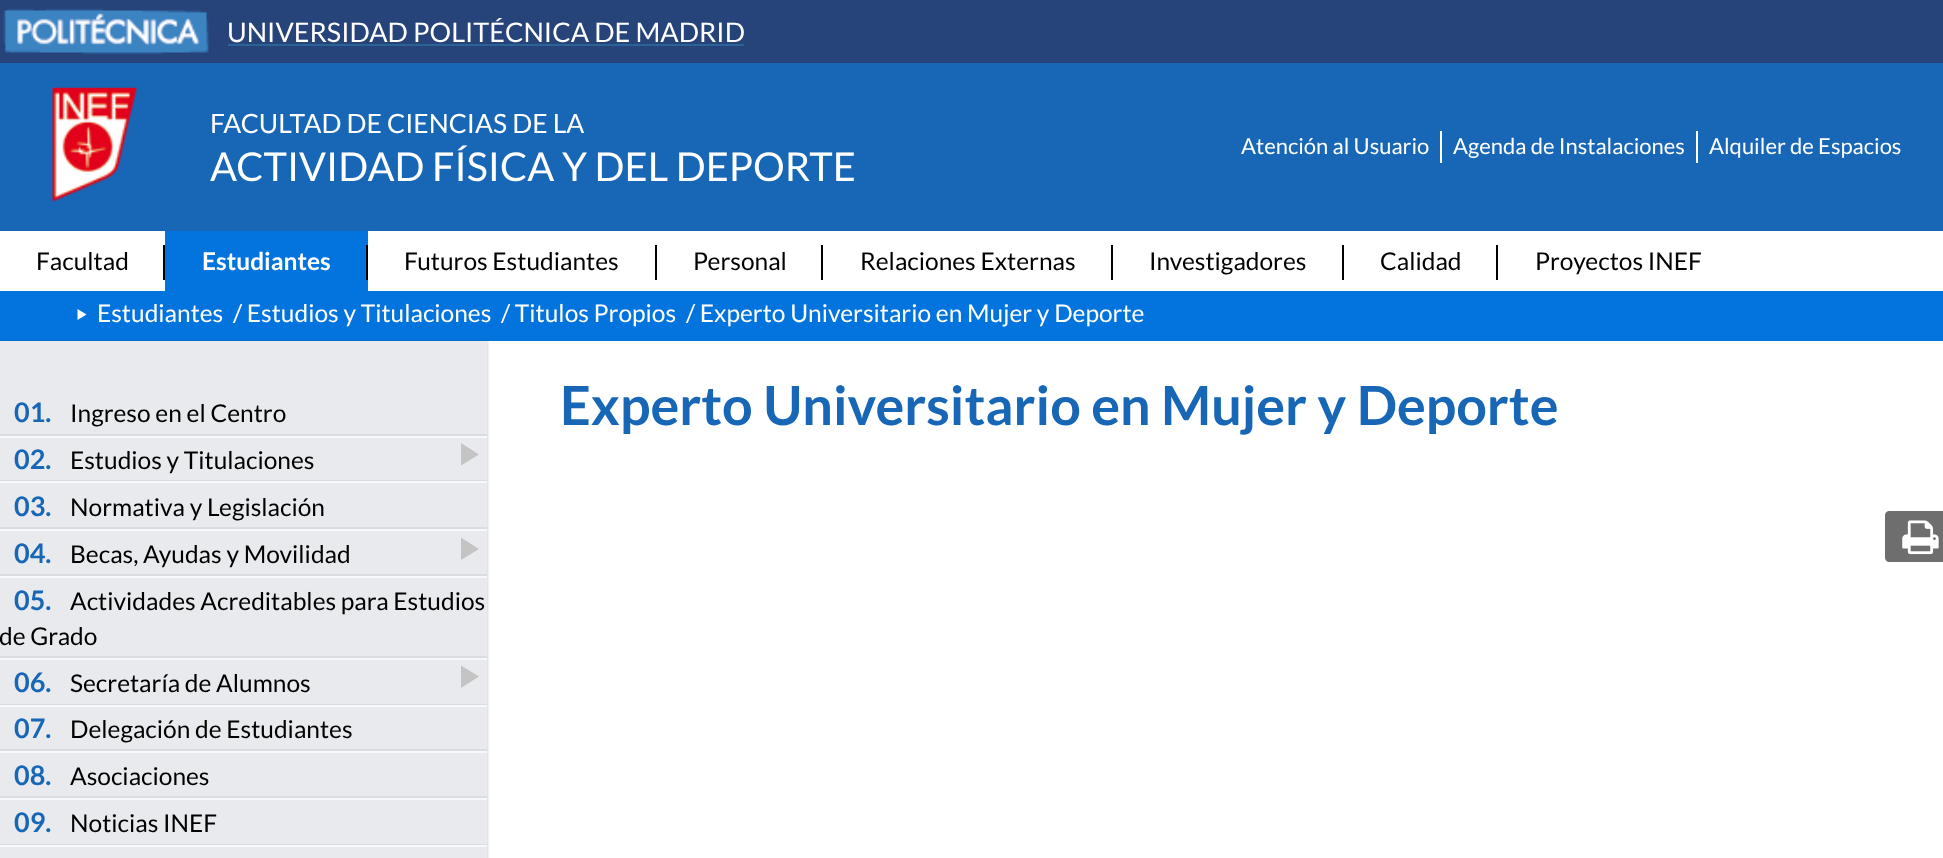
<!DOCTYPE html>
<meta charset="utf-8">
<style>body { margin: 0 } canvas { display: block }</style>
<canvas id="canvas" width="1943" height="858"></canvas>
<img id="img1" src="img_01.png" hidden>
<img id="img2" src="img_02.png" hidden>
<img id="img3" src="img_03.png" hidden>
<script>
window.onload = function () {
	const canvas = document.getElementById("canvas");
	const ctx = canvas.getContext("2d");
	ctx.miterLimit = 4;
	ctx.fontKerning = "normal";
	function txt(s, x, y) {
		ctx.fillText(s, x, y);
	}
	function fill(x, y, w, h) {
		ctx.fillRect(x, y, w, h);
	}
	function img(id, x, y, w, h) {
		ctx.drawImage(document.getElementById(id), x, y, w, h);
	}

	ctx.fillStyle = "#FFFFFF";
	fill(0, 0, 1943, 858);
	ctx.fillStyle = "#26447A";
	fill(0, 0, 1943, 63);
	img("img1", 3, 8, 206, 47);
	ctx.fillStyle = "#2A6496";
	fill(228, 44, 516, 2);
	ctx.fillStyle = "#1867B7";
	fill(0, 63, 1943, 168);
	img("img2", 52, 87, 85, 115);
	ctx.fillStyle = "#FFFFFF";
	fill(1440, 131, 2, 32);
	fill(1696, 131, 2, 32);
	ctx.fillStyle = "#000000";
	fill(163, 245, 2, 35);
	ctx.fillStyle = "#0374DD";
	fill(165, 231, 203, 60);
	ctx.fillStyle = "#000000";
	fill(366, 245, 2, 35);
	fill(655, 245, 2, 35);
	fill(821, 245, 2, 35);
	fill(1111, 245, 2, 35);
	fill(1342, 245, 2, 35);
	fill(1496, 245, 2, 35);
	ctx.fillStyle = "#0374DD";
	fill(0, 291, 1943, 50);
	ctx.fillStyle = "#FFFFFF";
	ctx.beginPath();
	ctx.moveTo(77.5, 320);
	ctx.lineTo(86.5, 314.5);
	ctx.lineTo(77.5, 309);
	ctx.closePath();
	ctx.fill();
	ctx.fillStyle = "rgba(50, 50, 50, 0.2)";
	ctx.filter = "blur(1px)";
	ctx.beginPath();
	ctx.rect(2, 341, 486, 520);
	ctx.fill();
	ctx.filter = "none";
	ctx.fillStyle = "#E8EAED";
	fill(0, 341, 487, 517);
	ctx.fillStyle = "#DADDE0";
	fill(0, 434, 487, 2);
	ctx.fillStyle = "#F7F8F9";
	fill(0, 436, 487, 2);
	ctx.fillStyle = "#DADDE0";
	fill(0, 480, 487, 1);
	ctx.fillStyle = "#C4C4C4";
	ctx.beginPath();
	ctx.moveTo(461, 465.5);
	ctx.lineTo(479, 454.5);
	ctx.lineTo(461, 443);
	ctx.closePath();
	ctx.fill();
	ctx.fillStyle = "#F7F8F9";
	fill(0, 481, 487, 2);
	ctx.fillStyle = "#DADDE0";
	fill(0, 527, 487, 2);
	ctx.fillStyle = "#F7F8F9";
	fill(0, 529, 487, 2);
	ctx.fillStyle = "#DADDE0";
	fill(0, 574, 487, 2);
	ctx.fillStyle = "#C4C4C4";
	ctx.beginPath();
	ctx.moveTo(461, 560);
	ctx.lineTo(479, 549);
	ctx.lineTo(461, 537.5);
	ctx.closePath();
	ctx.fill();
	ctx.fillStyle = "#F7F8F9";
	fill(0, 576, 487, 2);
	ctx.fillStyle = "#DADDE0";
	fill(0, 656, 487, 2);
	ctx.fillStyle = "#F7F8F9";
	fill(0, 658, 487, 2);
	ctx.fillStyle = "#DADDE0";
	fill(0, 704, 487, 1);
	ctx.fillStyle = "#C4C4C4";
	ctx.beginPath();
	ctx.moveTo(461, 688);
	ctx.lineTo(479, 676.5);
	ctx.lineTo(461, 665.5);
	ctx.closePath();
	ctx.fill();
	ctx.fillStyle = "#F7F8F9";
	fill(0, 705, 487, 2);
	ctx.fillStyle = "#DADDE0";
	fill(0, 749, 487, 2);
	ctx.fillStyle = "#F7F8F9";
	fill(0, 751, 487, 2);
	ctx.fillStyle = "#DADDE0";
	fill(0, 796, 487, 2);
	ctx.fillStyle = "#F7F8F9";
	fill(0, 798, 487, 2);
	ctx.fillStyle = "#DADDE0";
	fill(0, 844, 487, 1);
	ctx.fillStyle = "#F7F8F9";
	fill(0, 845, 487, 2);
	ctx.fillStyle = "#6E6E6E";
	ctx.beginPath();
	ctx.moveTo(1889, 511);
	ctx.lineTo(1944, 511);
	ctx.lineTo(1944, 562);
	ctx.lineTo(1889, 562);
	ctx.bezierCurveTo(1887, 562, 1885, 560, 1885, 558);
	ctx.lineTo(1885, 515);
	ctx.bezierCurveTo(1885, 513, 1887, 511, 1889, 511);
	ctx.closePath();
	ctx.fill();
	img("img3", 1902, 520, 37, 35);
	ctx.font = "27px Lato";
	ctx.fillStyle = "#FFFFFF";
	txt("UNIVERSIDAD POLITÉCNICA DE MADRID", 227, 42);
	ctx.font = "26.5px Lato";
	txt("FACULTAD DE CIENCIAS DE LA", 210, 133);
	ctx.font = "39.75px Lato";
	txt("ACTIVIDAD FÍSICA Y DEL DEPORTE", 210, 181);
	ctx.font = "22px Lato";
	txt("Atención al Usuario", 1241, 154);
	txt("Agenda de Instalaciones", 1453, 154);
	txt("Alquiler de Espacios", 1709, 154);
	ctx.font = "24.5px Lato";
	ctx.fillStyle = "#000000";
	txt("Facultad", 36, 270);
	ctx.font = "bold 24.5px Lato";
	ctx.fillStyle = "#FFFFFF";
	txt("Estudiantes", 202, 270);
	ctx.font = "24.5px Lato";
	ctx.fillStyle = "#000000";
	txt("Futuros Estudiantes", 404, 270);
	txt("Personal", 693, 270);
	txt("Relaciones Externas", 860, 270);
	txt("Investigadores", 1149, 270);
	txt("Calidad", 1380, 270);
	txt("Proyectos INEF", 1535, 270);
	ctx.fillStyle = "#FFFFFF";
	txt("Estudiantes", 97, 322);
	txt("/ Estudios y Titulaciones", 233, 322);
	txt("/ Titulos Propios", 501, 322);
	txt("/ Experto Universitario en Mujer y Deporte", 686, 322);
	ctx.font = "bold 27px Lato";
	ctx.fillStyle = "#1867B7";
	txt("01.", 14, 422);
	ctx.font = "24.5px Lato";
	ctx.fillStyle = "#000000";
	txt("Ingreso en el Centro", 70, 422);
	ctx.font = "bold 27px Lato";
	ctx.fillStyle = "#1867B7";
	txt("02.", 14, 469);
	ctx.font = "24.5px Lato";
	ctx.fillStyle = "#000000";
	txt("Estudios y Titulaciones", 70, 469);
	ctx.font = "bold 27px Lato";
	ctx.fillStyle = "#1867B7";
	txt("03.", 14, 516);
	ctx.font = "24.5px Lato";
	ctx.fillStyle = "#000000";
	txt("Normativa y Legislación", 70, 516);
	ctx.font = "bold 27px Lato";
	ctx.fillStyle = "#1867B7";
	txt("04.", 14, 563);
	ctx.font = "24.5px Lato";
	ctx.fillStyle = "#000000";
	txt("Becas, Ayudas y Movilidad", 70, 563);
	ctx.font = "bold 27px Lato";
	ctx.fillStyle = "#1867B7";
	txt("05.", 14, 610);
	ctx.font = "24.5px Lato";
	ctx.fillStyle = "#000000";
	txt("Actividades Acreditables para Estudios", 70, 610);
	txt("de Grado", -1, 645);
	ctx.font = "bold 27px Lato";
	ctx.fillStyle = "#1867B7";
	txt("06.", 14, 692);
	ctx.font = "24.5px Lato";
	ctx.fillStyle = "#000000";
	txt("Secretaría de Alumnos", 70, 692);
	ctx.font = "bold 27px Lato";
	ctx.fillStyle = "#1867B7";
	txt("07.", 14, 738);
	ctx.font = "24.5px Lato";
	ctx.fillStyle = "#000000";
	txt("Delegación de Estudiantes", 70, 738);
	ctx.font = "bold 27px Lato";
	ctx.fillStyle = "#1867B7";
	txt("08.", 14, 785);
	ctx.font = "24.5px Lato";
	ctx.fillStyle = "#000000";
	txt("Asociaciones", 70, 785);
	ctx.font = "bold 27px Lato";
	ctx.fillStyle = "#1867B7";
	txt("09.", 14, 832);
	ctx.font = "24.5px Lato";
	ctx.fillStyle = "#000000";
	txt("Noticias INEF", 70, 832);
	ctx.font = "bold 53.9px Lato";
	ctx.fillStyle = "#1867B7";
	txt("Experto Universitario en Mujer y Deporte", 560, 425);
};
</script>
